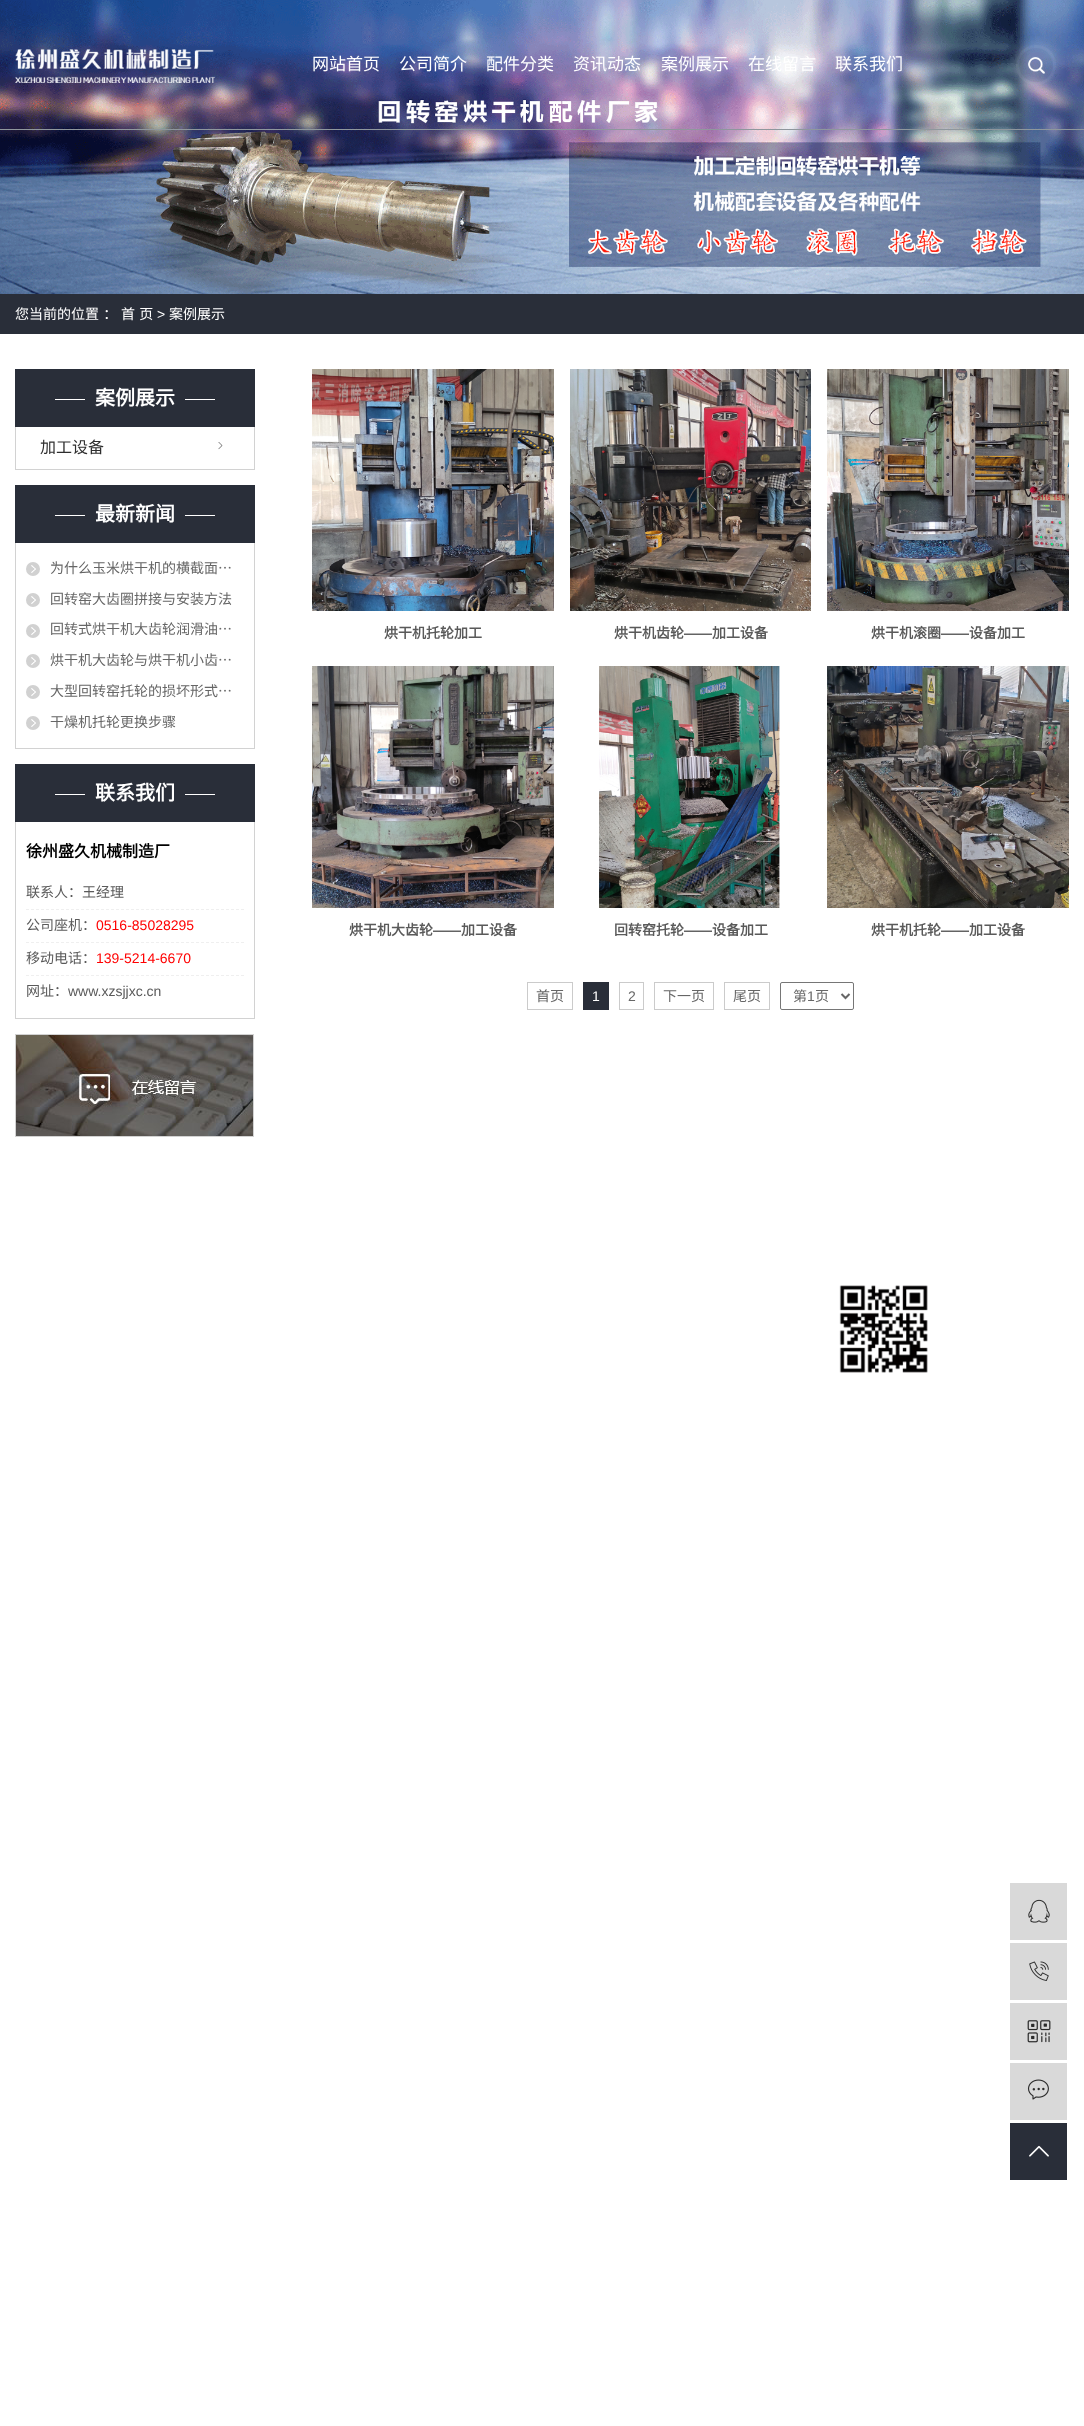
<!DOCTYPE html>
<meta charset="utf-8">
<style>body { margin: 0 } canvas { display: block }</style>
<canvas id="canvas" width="1084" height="2426"></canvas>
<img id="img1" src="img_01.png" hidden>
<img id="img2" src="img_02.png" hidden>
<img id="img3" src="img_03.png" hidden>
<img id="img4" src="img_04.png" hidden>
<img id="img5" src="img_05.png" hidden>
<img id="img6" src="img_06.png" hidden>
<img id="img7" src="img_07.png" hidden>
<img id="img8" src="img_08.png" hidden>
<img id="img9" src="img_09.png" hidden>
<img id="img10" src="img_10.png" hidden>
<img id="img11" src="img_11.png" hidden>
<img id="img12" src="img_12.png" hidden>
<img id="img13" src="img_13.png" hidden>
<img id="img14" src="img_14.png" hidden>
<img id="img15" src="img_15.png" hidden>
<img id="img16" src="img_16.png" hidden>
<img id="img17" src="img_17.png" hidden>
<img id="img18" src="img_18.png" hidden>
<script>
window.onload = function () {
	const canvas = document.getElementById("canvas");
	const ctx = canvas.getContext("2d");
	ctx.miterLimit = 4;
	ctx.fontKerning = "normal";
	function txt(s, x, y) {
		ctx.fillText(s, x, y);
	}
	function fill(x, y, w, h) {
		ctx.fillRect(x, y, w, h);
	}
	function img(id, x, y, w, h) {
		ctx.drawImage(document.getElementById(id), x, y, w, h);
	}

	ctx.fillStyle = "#FFFFFF";
	fill(0, 0, 1084, 2426);
	img("img1", 0, 0, 1084, 294);
	ctx.fillStyle = "#8F979D";
	fill(0, 129, 1084, 1);
	img("img2", 15, 49, 200, 34);
	img("img3", 1007, 36, 58, 57);
	ctx.fillStyle = "#292E39";
	fill(0, 294, 1084, 40);
	fill(15, 369, 240, 58);
	ctx.fillStyle = "#FFFFFF";
	fill(55, 399, 30, 1);
	fill(185, 399, 30, 1);
	ctx.fillStyle = "#D2D2D2";
	fill(254, 427, 1, 43);
	fill(15, 469, 240, 1);
	fill(15, 427, 1, 43);
	img("img4", 218, 442, 5, 8);
	ctx.fillStyle = "#292E39";
	fill(15, 485, 240, 58);
	ctx.fillStyle = "#FFFFFF";
	fill(55, 515, 30, 1);
	fill(185, 515, 30, 1);
	ctx.fillStyle = "#D2D2D2";
	fill(254, 543, 1, 206);
	fill(15, 748, 240, 1);
	fill(15, 543, 1, 206);
	ctx.fillStyle = "#D1D1D1";
	ctx.beginPath();
	ctx.arc(33, 569, 7, 0, Math.PI * 2);
	ctx.fill();
	img("img5", 31, 565, 5, 8);
	ctx.beginPath();
	ctx.arc(33, 600, 7, 0, Math.PI * 2);
	ctx.fill();
	img("img5", 31, 596, 5, 8);
	ctx.beginPath();
	ctx.arc(33, 631, 7, 0, Math.PI * 2);
	ctx.fill();
	img("img5", 31, 627, 5, 8);
	ctx.beginPath();
	ctx.arc(33, 661, 7, 0, Math.PI * 2);
	ctx.fill();
	img("img5", 31, 657, 5, 8);
	ctx.beginPath();
	ctx.arc(33, 692, 7, 0, Math.PI * 2);
	ctx.fill();
	img("img5", 31, 688, 5, 8);
	ctx.beginPath();
	ctx.arc(33, 723, 7, 0, Math.PI * 2);
	ctx.fill();
	img("img5", 31, 719, 5, 8);
	ctx.fillStyle = "#292E39";
	fill(15, 764, 240, 58);
	ctx.fillStyle = "#FFFFFF";
	fill(55, 794, 30, 1);
	fill(185, 794, 30, 1);
	ctx.fillStyle = "#D2D2D2";
	fill(254, 822, 1, 197);
	fill(15, 1018, 240, 1);
	fill(15, 822, 1, 197);
	ctx.beginPath();
	ctx.moveTo(26, 909.5);
	ctx.lineTo(244, 909.5);
	ctx.strokeStyle = "#EFEFEF";
	ctx.setLineDash([3, 2]);
	ctx.stroke();
	ctx.beginPath();
	ctx.moveTo(26, 942.5);
	ctx.lineTo(244, 942.5);
	ctx.stroke();
	ctx.beginPath();
	ctx.moveTo(26, 975.5);
	ctx.lineTo(244, 975.5);
	ctx.stroke();
	ctx.strokeStyle = "#D2D2D2";
	ctx.setLineDash([]);
	ctx.strokeRect(15.5, 1034.5, 238, 102);
	img("img6", 16, 1035, 237, 101);
	img("img7", 312, 369, 242, 242);
	img("img8", 570, 369, 241, 242);
	img("img9", 827, 369, 242, 242);
	img("img10", 312, 666, 242, 242);
	img("img11", 599, 666, 181, 242);
	img("img12", 827, 666, 242, 242);
	ctx.strokeStyle = "#CBCBCB";
	ctx.strokeRect(527.5, 982.5, 45, 27);
	ctx.fillStyle = "#292E39";
	fill(583, 982, 26, 28);
	ctx.strokeRect(619.5, 982.5, 24, 27);
	ctx.strokeRect(654.5, 982.5, 59, 27);
	ctx.strokeRect(724.5, 982.5, 45, 27);
	ctx.beginPath();
	ctx.roundRect(780.5, 982.5, 73, 27, 1.5);
	ctx.strokeStyle = "#767676";
	ctx.stroke();
	ctx.beginPath();
	ctx.moveTo(841.5, 994);
	ctx.lineTo(845.5, 998);
	ctx.lineTo(849.5, 994);
	ctx.strokeStyle = "#666666";
	ctx.lineWidth = 2;
	ctx.stroke();
	img("img13", 839, 1285, 89, 88);
	ctx.fillStyle = "#D9D9D9";
	fill(1010, 1883, 57, 57);
	img("img14", 1028, 1899, 22, 24);
	fill(1010, 1943, 57, 57);
	img("img15", 1029, 1961, 20, 20);
	fill(1010, 2003, 57, 57);
	img("img16", 1027, 2020, 24, 23);
	fill(1010, 2063, 57, 57);
	img("img17", 1027, 2079, 22, 21);
	ctx.fillStyle = "#292E39";
	fill(1010, 2123, 57, 57);
	img("img18", 1029, 2145, 20, 12);
	ctx.font = "17px Noto Sans CJK SC";
	ctx.fillStyle = "#FFFFFF";
	txt("网站首页", 312, 70);
	txt("公司简介", 399, 70);
	txt("配件分类", 486, 70);
	txt("资讯动态", 573, 70);
	txt("案例展示", 661, 70);
	txt("在线留言", 748, 70);
	txt("联系我们", 835, 70);
	ctx.wordSpacing = "1px";
	ctx.font = "14px Noto Sans CJK SC";
	txt("您当前的位置 ：", 15, 319);
	txt("首 页", 121, 319);
	ctx.wordSpacing = "0px";
	ctx.font = "14px Liberation Sans";
	txt(">", 157, 319);
	ctx.font = "14px Noto Sans CJK SC";
	txt("案例展示", 169, 319);
	ctx.font = "bold 20px Noto Sans CJK SC";
	txt("案例展示", 95, 405);
	ctx.font = "16px Noto Sans CJK SC";
	ctx.fillStyle = "#2E2E2E";
	txt("加工设备", 40, 453);
	ctx.font = "bold 20px Noto Sans CJK SC";
	ctx.fillStyle = "#FFFFFF";
	txt("最新新闻", 95, 521);
	ctx.font = "14px Noto Sans CJK SC";
	ctx.fillStyle = "#666666";
	txt("为什么玉米烘干机的横截面…", 50, 573);
	txt("回转窑大齿圈拼接与安装方法", 50, 604);
	txt("回转式烘干机大齿轮润滑油…", 50, 634);
	txt("烘干机大齿轮与烘干机小齿…", 50, 665);
	txt("大型回转窑托轮的损坏形式…", 50, 696);
	txt("干燥机托轮更换步骤", 50, 727);
	ctx.font = "bold 20px Noto Sans CJK SC";
	ctx.fillStyle = "#FFFFFF";
	txt("联系我们", 95, 800);
	ctx.font = "bold 16px Noto Sans CJK SC";
	ctx.fillStyle = "#000000";
	txt("徐州盛久机械制造厂", 26, 857);
	ctx.font = "14px Noto Sans CJK SC";
	ctx.fillStyle = "#5A5A5A";
	txt("联系人：王经理", 26, 897);
	txt("公司座机：", 26, 930);
	ctx.font = "14px Liberation Sans";
	ctx.fillStyle = "#FF0000";
	txt("0516-85028295", 96, 930);
	ctx.font = "14px Noto Sans CJK SC";
	ctx.fillStyle = "#5A5A5A";
	txt("移动电话：", 26, 963);
	ctx.font = "14px Liberation Sans";
	ctx.fillStyle = "#FF0000";
	txt("139-5214-6670", 96, 963);
	ctx.font = "14px Noto Sans CJK SC";
	ctx.fillStyle = "#5A5A5A";
	txt("网址：", 26, 996);
	ctx.font = "14px Liberation Sans";
	txt("www.xzsjjxc.cn", 68, 996);
	ctx.font = "bold 14px Noto Sans CJK SC";
	txt("烘干机托轮加工", 384, 638);
	txt("烘干机齿轮", 614, 638);
	ctx.font = "bold 14px Liberation Sans";
	txt("——", 684, 638);
	ctx.font = "bold 14px Noto Sans CJK SC";
	txt("加工设备", 712, 638);
	txt("烘干机滚圈", 871, 638);
	ctx.font = "bold 14px Liberation Sans";
	txt("——", 941, 638);
	ctx.font = "bold 14px Noto Sans CJK SC";
	txt("设备加工", 969, 638);
	txt("烘干机大齿轮", 349, 935);
	ctx.font = "bold 14px Liberation Sans";
	txt("——", 433, 935);
	ctx.font = "bold 14px Noto Sans CJK SC";
	txt("加工设备", 461, 935);
	txt("回转窑托轮", 614, 935);
	ctx.font = "bold 14px Liberation Sans";
	txt("——", 684, 935);
	ctx.font = "bold 14px Noto Sans CJK SC";
	txt("设备加工", 712, 935);
	txt("烘干机托轮", 871, 935);
	ctx.font = "bold 14px Liberation Sans";
	txt("——", 941, 935);
	ctx.font = "bold 14px Noto Sans CJK SC";
	txt("加工设备", 969, 935);
	ctx.font = "14px Noto Sans CJK SC";
	ctx.fillStyle = "#666666";
	txt("首页", 536, 1001);
	ctx.font = "14px Liberation Sans";
	ctx.fillStyle = "#FFFFFF";
	txt("1", 592, 1001);
	ctx.fillStyle = "#666666";
	txt("2", 628, 1001);
	ctx.font = "14px Noto Sans CJK SC";
	txt("下一页", 663, 1001);
	txt("尾页", 733, 1001);
	txt("第", 793, 1001);
	ctx.font = "14px Liberation Sans";
	txt("1", 807, 1001);
	ctx.font = "14px Noto Sans CJK SC";
	txt("页", 815, 1001);
};
</script>
